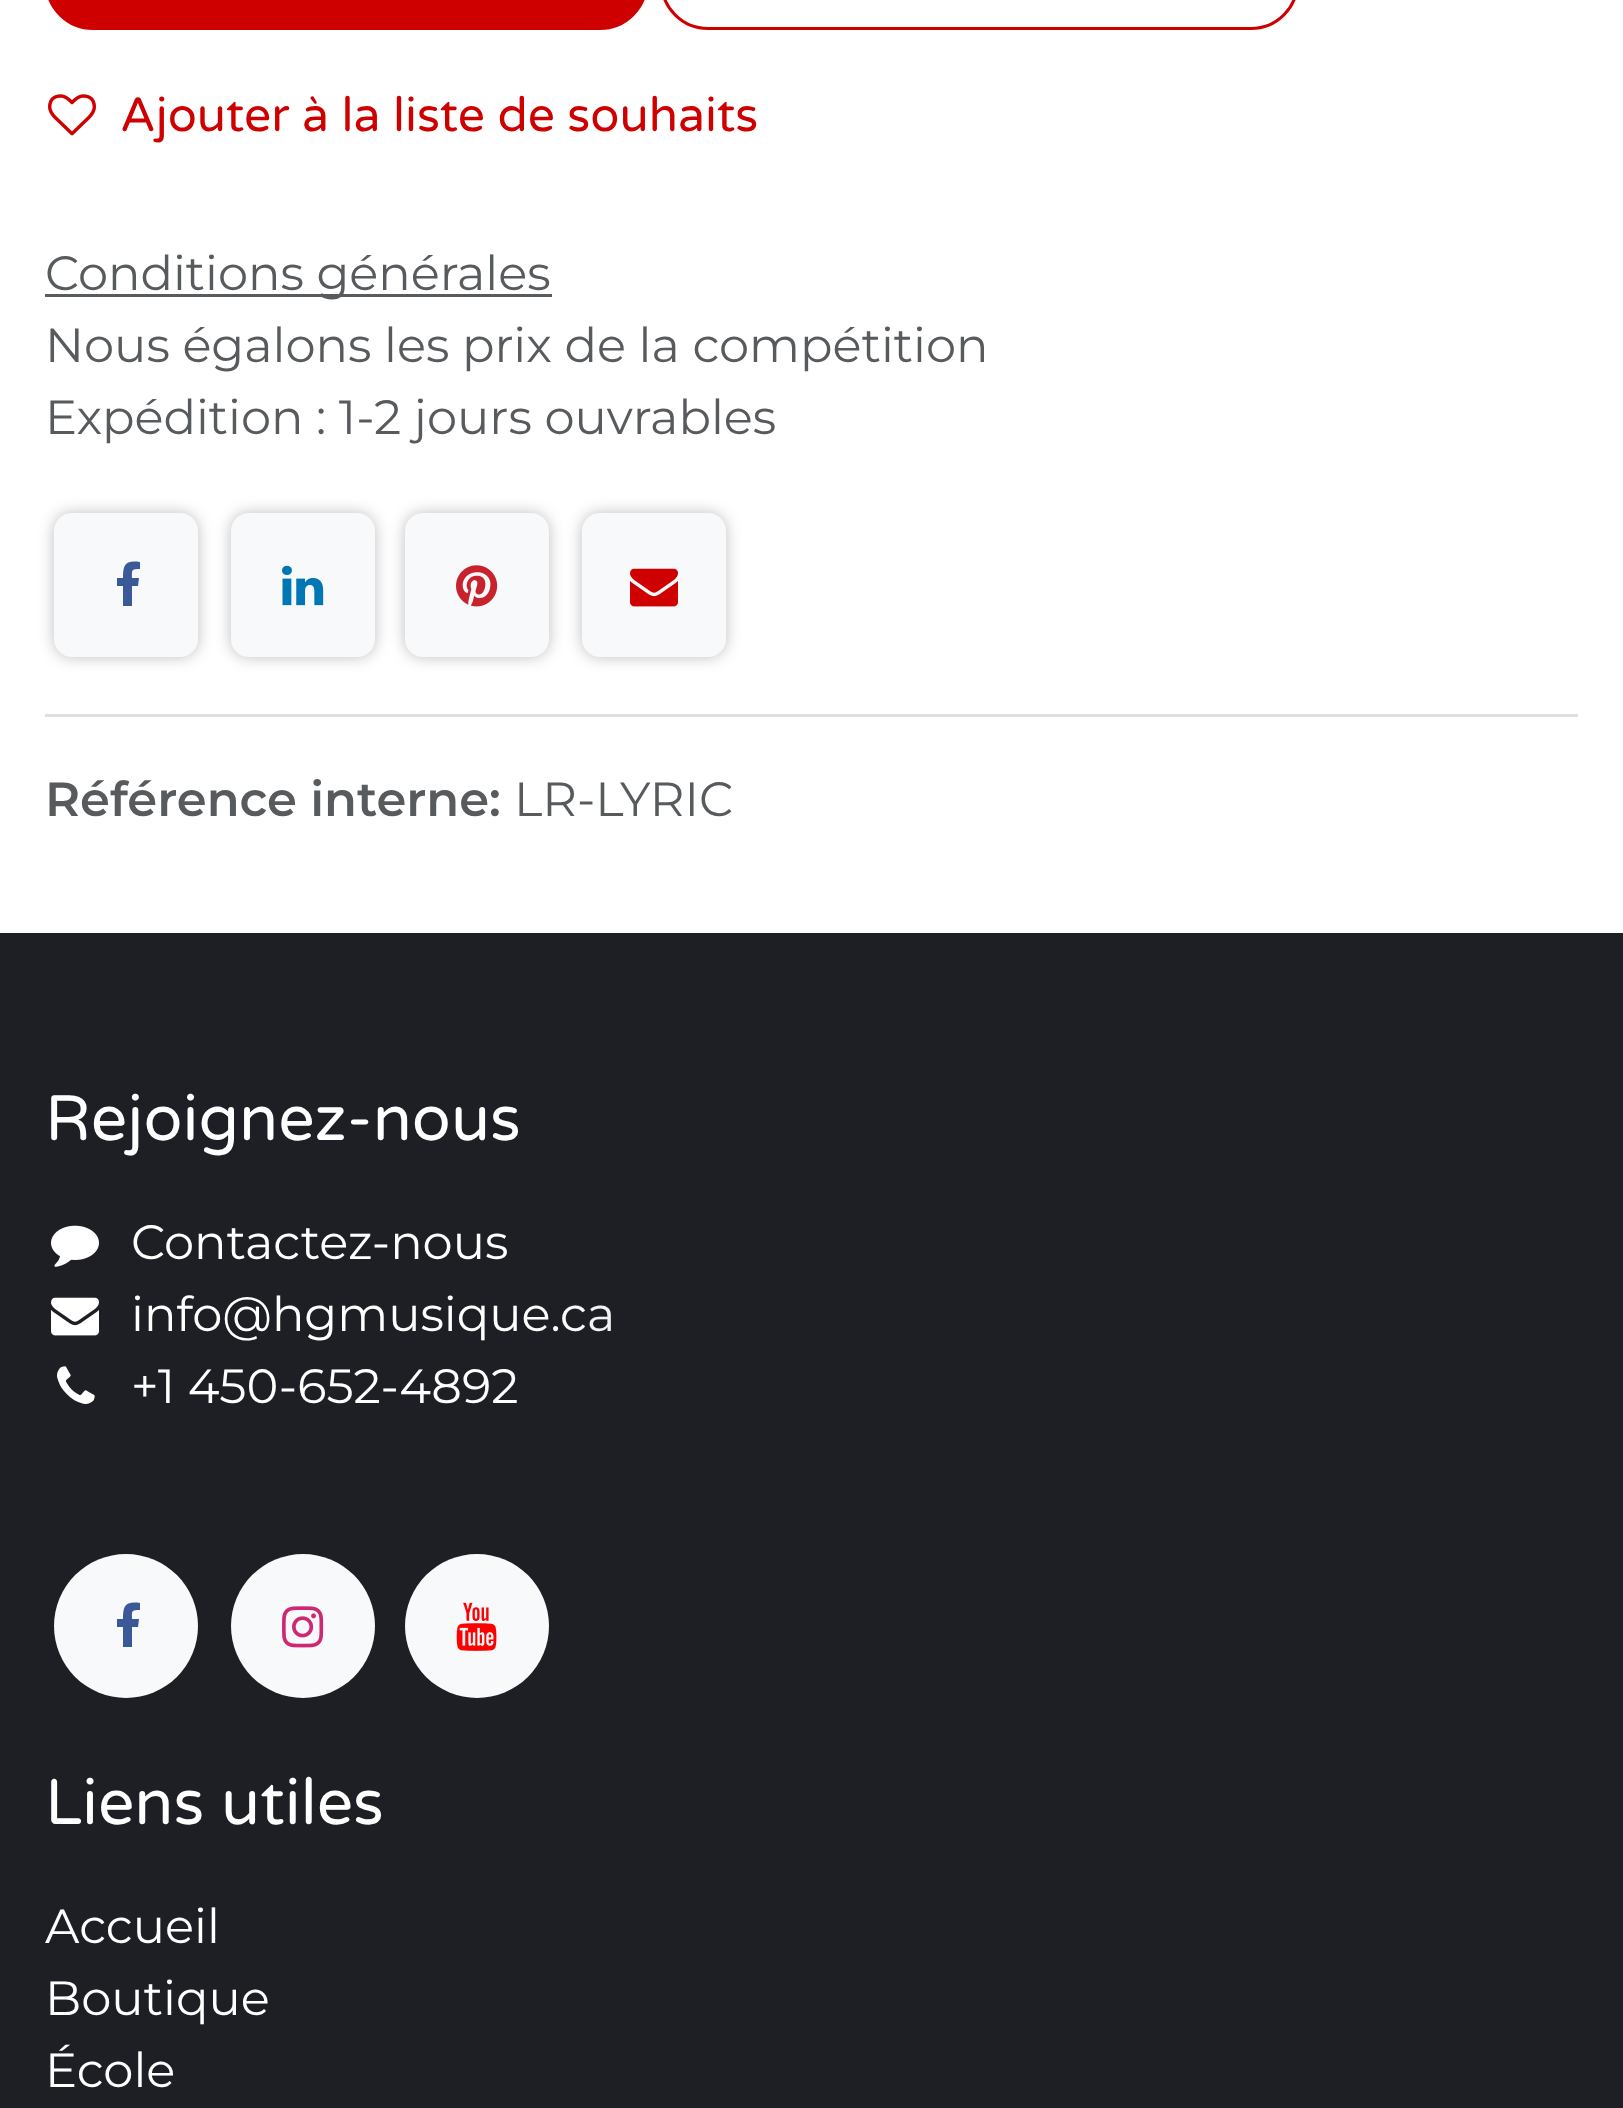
<!DOCTYPE html>
<meta charset="utf-8">
<style>body { margin: 0 } canvas { display: block }</style>
<canvas id="canvas" width="1623" height="2108"></canvas>
<img id="img1" src="img_01.png" hidden>
<img id="img2" src="img_02.png" hidden>
<img id="img3" src="img_03.png" hidden>
<img id="img4" src="img_04.png" hidden>
<img id="img5" src="img_05.png" hidden>
<img id="img6" src="img_06.png" hidden>
<img id="img7" src="img_07.png" hidden>
<img id="img8" src="img_08.png" hidden>
<img id="img9" src="img_09.png" hidden>
<script>
window.onload = function () {
	const canvas = document.getElementById("canvas");
	const ctx = canvas.getContext("2d");
	ctx.miterLimit = 4;
	ctx.fontKerning = "normal";
	function txt(s, x, y) {
		ctx.fillText(s, x, y);
	}
	function fill(x, y, w, h) {
		ctx.fillRect(x, y, w, h);
	}
	function round(x, y, w, h, r) {
		ctx.beginPath();
		ctx.roundRect(x, y, w, h, r);
		ctx.fill();
	}
	function img(id, x, y, w, h) {
		ctx.drawImage(document.getElementById(id), x, y, w, h);
	}

	ctx.fillStyle = "#FFFFFF";
	fill(0, 0, 1623, 2108);
	ctx.fillStyle = "#CE0000";
	ctx.beginPath();
	ctx.roundRect(46.5, -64.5, 600, 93, 61.5);
	ctx.fill();
	ctx.strokeStyle = "#CE0000";
	ctx.lineWidth = 3;
	ctx.stroke();
	ctx.beginPath();
	ctx.roundRect(661.5, -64.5, 636, 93, 61.5);
	ctx.stroke();
	img("img1", 48, 94, 48, 42);
	ctx.fillStyle = "#595C5F";
	fill(45, 294, 507, 3);
	ctx.fillStyle = "rgba(0, 0, 0, 0.25)";
	ctx.filter = "blur(7.5px)";
	ctx.beginPath();
	ctx.roundRect(54, 513, 144, 144, 18);
	ctx.fill();
	ctx.filter = "none";
	ctx.fillStyle = "#F8F9FA";
	round(54, 513, 144, 144, 18);
	ctx.fillStyle = "#3B5999";
	ctx.beginPath();
	ctx.moveTo(140, 562);
	ctx.lineTo(140, 569);
	ctx.bezierCurveTo(131, 569, 132, 570, 132, 578);
	ctx.lineTo(139, 578);
	ctx.lineTo(138, 586);
	ctx.lineTo(132, 586);
	ctx.lineTo(132, 606);
	ctx.lineTo(123, 606);
	ctx.lineTo(123, 586);
	ctx.lineTo(117, 586);
	ctx.lineTo(117, 578);
	ctx.lineTo(123, 578);
	ctx.bezierCurveTo(123, 565, 125, 560, 140, 562);
	ctx.closePath();
	ctx.fill();
	ctx.fillStyle = "rgba(0, 0, 0, 0.25)";
	ctx.filter = "blur(7.5px)";
	ctx.beginPath();
	ctx.roundRect(231, 513, 144, 144, 18);
	ctx.fill();
	ctx.filter = "none";
	ctx.fillStyle = "#F8F9FA";
	round(231, 513, 144, 144, 18);
	img("img2", 282, 565, 42, 41);
	ctx.fillStyle = "rgba(0, 0, 0, 0.25)";
	ctx.filter = "blur(7.5px)";
	ctx.beginPath();
	ctx.roundRect(405, 513, 144, 144, 18);
	ctx.fill();
	ctx.filter = "none";
	ctx.fillStyle = "#F8F9FA";
	round(405, 513, 144, 144, 18);
	img("img3", 456, 565, 42, 42);
	ctx.fillStyle = "rgba(0, 0, 0, 0.25)";
	ctx.filter = "blur(7.5px)";
	ctx.beginPath();
	ctx.roundRect(582, 513, 144, 144, 18);
	ctx.fill();
	ctx.filter = "none";
	ctx.fillStyle = "#F8F9FA";
	round(582, 513, 144, 144, 18);
	img("img4", 630, 568, 48, 39);
	ctx.fillStyle = "#DEDEDF";
	fill(45, 714, 1533, 3);
	ctx.fillStyle = "#1D1F25";
	fill(0, 933, 1623, 1175);
	img("img5", 51, 1225, 48, 42);
	img("img6", 51, 1297, 48, 39);
	img("img7", 57, 1366, 38, 38);
	ctx.fillStyle = "#F8F9FA";
	ctx.beginPath();
	ctx.arc(126, 1626, 72, 0, Math.PI * 2);
	ctx.fill();
	ctx.fillStyle = "#3B5999";
	ctx.beginPath();
	ctx.moveTo(140, 1603);
	ctx.lineTo(140, 1610);
	ctx.bezierCurveTo(131, 1610, 132, 1611, 132, 1619);
	ctx.lineTo(139, 1619);
	ctx.lineTo(138, 1627);
	ctx.lineTo(132, 1627);
	ctx.lineTo(132, 1647);
	ctx.lineTo(123, 1647);
	ctx.lineTo(123, 1627);
	ctx.lineTo(117, 1627);
	ctx.lineTo(117, 1619);
	ctx.lineTo(123, 1619);
	ctx.bezierCurveTo(123, 1606, 125, 1601, 140, 1603);
	ctx.closePath();
	ctx.fill();
	ctx.fillStyle = "#F8F9FA";
	ctx.beginPath();
	ctx.arc(303, 1626, 72, 0, Math.PI * 2);
	ctx.fill();
	img("img8", 282, 1606, 42, 42);
	ctx.beginPath();
	ctx.arc(477, 1626, 72, 0, Math.PI * 2);
	ctx.fill();
	img("img9", 456, 1602, 41, 49);
	ctx.font = "48px Varela Round";
	ctx.fillStyle = "#CE0000";
	txt("Ajouter à la liste de souhaits", 120, 131);
	ctx.font = "48px Montserrat";
	ctx.fillStyle = "#585B5E";
	txt("Conditions générales", 45, 290);
	txt("Nous égalons les prix de la compétition", 45, 362);
	txt("Expédition : 1-2 jours ouvrables", 45, 434);
	ctx.font = "600 48px Montserrat";
	txt("Référence interne:", 45, 816);
	ctx.font = "48px Montserrat";
	txt("LR-LYRIC", 514, 816);
	ctx.font = "64.25px Varela Round";
	ctx.fillStyle = "#FFFFFF";
	txt("Rejoignez-nous", 45, 1140);
	ctx.font = "48px Montserrat";
	txt("Contactez-nous", 131, 1259);
	txt("info@hgmusique.c", 131, 1331);
	ctx.fillStyle = "#F1F2F4";
	txt("a", 587, 1331);
	ctx.fillStyle = "#FFFFFF";
	txt("+1 450-652-4892", 131, 1403);
	ctx.font = "64.25px Varela Round";
	txt("Liens utiles", 45, 1824);
	ctx.font = "48px Montserrat";
	txt("Accueil", 45, 1943);
	txt("Boutique", 45, 2015);
	txt("École", 45, 2087);
};
</script>
